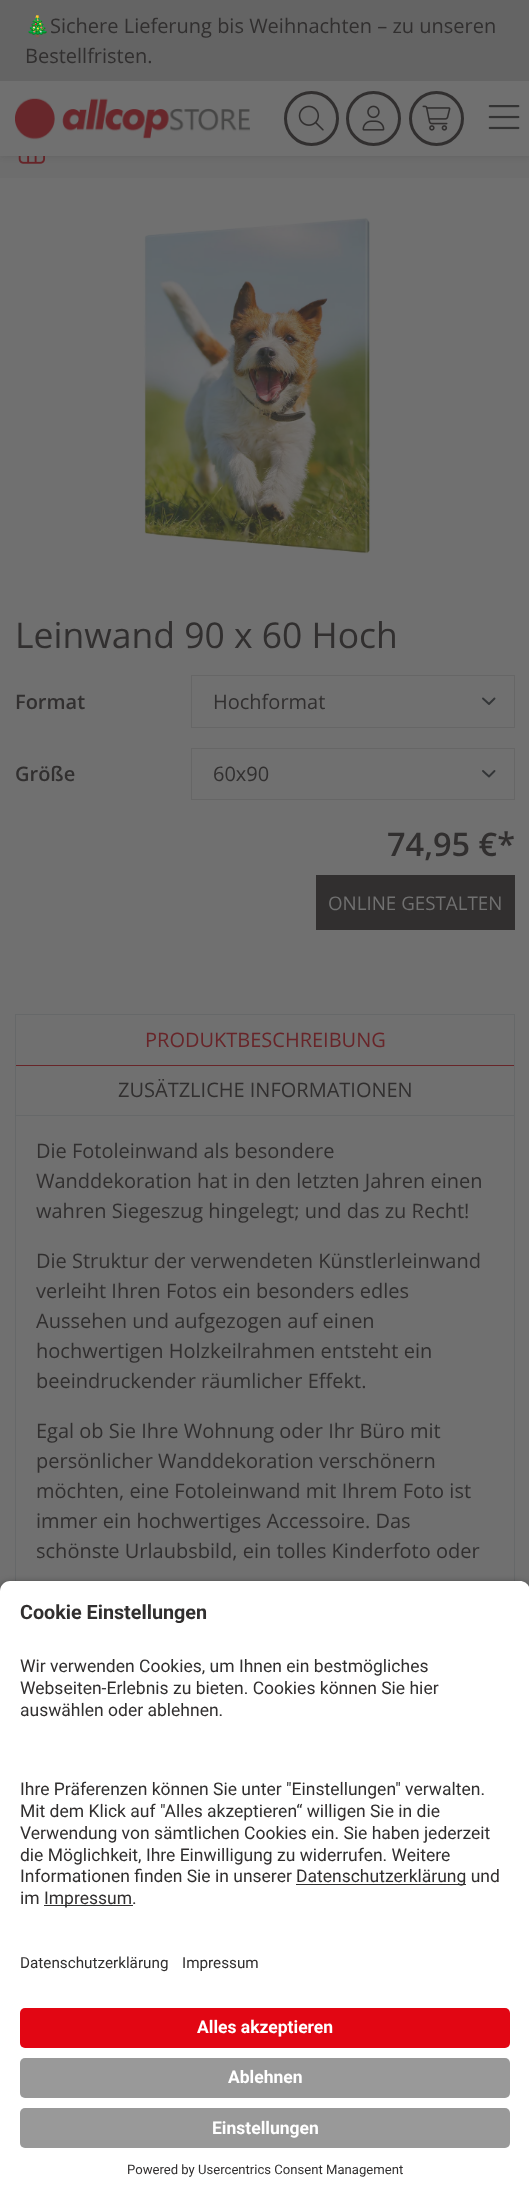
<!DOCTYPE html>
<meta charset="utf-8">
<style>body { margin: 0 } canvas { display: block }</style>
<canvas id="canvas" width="529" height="2197"></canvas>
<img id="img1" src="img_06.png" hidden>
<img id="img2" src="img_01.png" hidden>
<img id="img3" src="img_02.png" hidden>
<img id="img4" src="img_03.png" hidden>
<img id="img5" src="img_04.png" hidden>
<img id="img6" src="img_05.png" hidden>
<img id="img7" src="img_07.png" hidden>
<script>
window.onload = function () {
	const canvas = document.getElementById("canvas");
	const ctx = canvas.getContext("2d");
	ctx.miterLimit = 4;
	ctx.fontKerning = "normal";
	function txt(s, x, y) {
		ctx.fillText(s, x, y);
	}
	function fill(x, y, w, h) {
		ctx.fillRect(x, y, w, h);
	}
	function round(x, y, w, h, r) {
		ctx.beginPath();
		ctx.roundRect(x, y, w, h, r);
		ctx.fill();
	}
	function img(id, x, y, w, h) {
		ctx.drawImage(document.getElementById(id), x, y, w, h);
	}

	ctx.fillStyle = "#707070";
	fill(0, 0, 529, 2197);
	ctx.fillStyle = "#6D6D6D";
	fill(0, 156, 529, 22);
	img("img1", 18, 156, 27, 8);
	ctx.fillStyle = "rgba(36, 36, 36, 0.15)";
	ctx.filter = "blur(3px)";
	ctx.beginPath();
	ctx.rect(0, 0, 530, 156);
	ctx.fill();
	ctx.filter = "none";
	ctx.fillStyle = "#707070";
	fill(0, 81, 529, 75);
	ctx.fillStyle = "#646464";
	fill(0, 0, 529, 81);
	img("img2", 15, 98, 235, 42);
	ctx.beginPath();
	ctx.arc(311.5, 118.5, 26, 0, Math.PI * 2);
	ctx.strokeStyle = "#312F2F";
	ctx.lineWidth = 3;
	ctx.stroke();
	img("img3", 298, 105, 26, 26);
	ctx.beginPath();
	ctx.arc(373.5, 118.5, 26, 0, Math.PI * 2);
	ctx.stroke();
	img("img4", 362, 105, 23, 26);
	ctx.beginPath();
	ctx.arc(436.5, 118.5, 26, 0, Math.PI * 2);
	ctx.stroke();
	img("img5", 422, 105, 29, 26);
	img("img6", 488, 105, 32, 25);
	img("img7", 143, 217, 228, 337);
	ctx.beginPath();
	ctx.moveTo(483, 698.5);
	ctx.lineTo(489, 704);
	ctx.lineTo(494.5, 698.5);
	ctx.strokeStyle = "#333537";
	ctx.lineWidth = 1.9;
	ctx.lineCap = "round";
	ctx.lineJoin = "round";
	ctx.stroke();
	ctx.strokeStyle = "#666666";
	ctx.lineWidth = 1;
	ctx.lineJoin = "miter";
	ctx.strokeRect(191.5, 675.5, 323, 52);
	ctx.beginPath();
	ctx.moveTo(483, 771);
	ctx.lineTo(489, 776.5);
	ctx.lineTo(494.5, 771);
	ctx.strokeStyle = "#333537";
	ctx.lineWidth = 1.9;
	ctx.lineJoin = "round";
	ctx.stroke();
	ctx.strokeStyle = "#666666";
	ctx.lineWidth = 1;
	ctx.lineJoin = "miter";
	ctx.strokeRect(191.5, 748.5, 323, 51);
	ctx.strokeStyle = "#312F2F";
	ctx.lineWidth = 3;
	ctx.strokeRect(317.5, 876.5, 196, 52);
	ctx.fillStyle = "#312F2F";
	fill(319, 878, 193, 49);
	ctx.strokeStyle = "#666869";
	ctx.lineWidth = 1;
	ctx.strokeRect(15.5, 1014.5, 499, 101);
	ctx.fillStyle = "#682529";
	fill(16, 1065, 498, 1);
	ctx.fillStyle = "#666869";
	fill(514, 1116, 1, 465);
	fill(15, 1116, 1, 465);
	ctx.fillStyle = "rgba(0, 0, 0, 0.8)";
	ctx.filter = "blur(4.5px)";
	ctx.beginPath();
	ctx.roundRect(0, 1585, 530, 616, 10);
	ctx.fill();
	ctx.filter = "none";
	ctx.fillStyle = "#FFFFFF";
	ctx.beginPath();
	ctx.moveTo(10, 1581);
	ctx.lineTo(520, 1581);
	ctx.bezierCurveTo(525.5, 1581, 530, 1585.5, 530, 1591);
	ctx.lineTo(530, 1935);
	ctx.lineTo(0, 1935);
	ctx.lineTo(0, 1591);
	ctx.bezierCurveTo(0, 1585.5, 4.5, 1581, 10, 1581);
	ctx.closePath();
	ctx.fill();
	ctx.fillStyle = "#303030";
	fill(296, 1884, 170, 1);
	fill(44, 1905, 89, 1);
	ctx.fillStyle = "#FFFFFF";
	fill(0, 1935, 529, 262);
	ctx.fillStyle = "#E20613";
	round(20, 2008, 490, 40, 5);
	ctx.fillStyle = "#999999";
	round(20, 2058, 490, 40, 5);
	round(20, 2108, 490, 40, 5);
	ctx.font = "20px Noto Color Emoji";
	ctx.fillStyle = "#312F2F";
	txt("🎄", 25, 33);
	ctx.font = "20px Open Sans";
	txt("Sichere Lieferung bis Weihnachten – zu unseren", 50, 33);
	txt("Bestellfristen.", 25, 63);
	ctx.font = "35.5px Open Sans";
	txt("Leinwand 90 x 60 Hoch", 15, 648);
	ctx.font = "600 20px Open Sans";
	txt("Format", 15, 709);
	ctx.font = "20px Open Sans";
	txt("Hochformat", 213, 709);
	ctx.font = "600 20px Open Sans";
	txt("Größe", 15, 781);
	ctx.font = "20px Open Sans";
	txt("60x90", 213, 781);
	ctx.font = "600 32.5px Open Sans";
	txt("74,95 €*", 387, 856);
	ctx.font = "18.75px Open Sans";
	ctx.fillStyle = "#707070";
	txt("ONLINE GESTALTEN", 328, 910);
	ctx.font = "20px Open Sans";
	ctx.fillStyle = "#682529";
	txt("PRODUKTBESCHREIBUNG", 145, 1047);
	ctx.fillStyle = "#312F2F";
	txt("ZUSÄTZLICHE INFORMATIONEN", 118, 1097);
	txt("Die Fotoleinwand als besondere", 36, 1158);
	txt("Wanddekoration hat in den letzten Jahren einen", 36, 1188);
	txt("wahren Siegeszug hingelegt; und das zu Recht!", 36, 1218);
	txt("Die Struktur der verwendeten Künstlerleinwand", 36, 1268);
	txt("verleiht Ihren Fotos ein besonders edles", 36, 1298);
	txt("Aussehen und aufgezogen auf einen", 36, 1328);
	txt("hochwertigen Holzkeilrahmen entsteht ein", 36, 1358);
	txt("beeindruckender räumlicher Effekt.", 36, 1388);
	txt("Egal ob Sie Ihre Wohnung oder Ihr Büro mit", 36, 1438);
	txt("persönlicher Wanddekoration verschönern", 36, 1468);
	txt("möchten, eine Fotoleinwand mit Ihrem Foto ist", 36, 1498);
	txt("immer ein hochwertiges Accessoire. Das", 36, 1528);
	txt("schönste Urlaubsbild, ein tolles Kinderfoto oder", 36, 1558);
	ctx.font = "bold 19.75px Roboto";
	txt("Cookie Einstellungen", 20, 1619);
	ctx.font = "17.5px Roboto";
	txt("Wir verwenden Cookies, um Ihnen ein bestmögliches", 20, 1672);
	txt("Webseiten-Erlebnis zu bieten. Cookies können Sie hier", 20, 1694);
	txt("auswählen oder ablehnen.", 20, 1716);
	txt("Ihre Präferenzen können Sie unter \"Einstellungen\" verwalten.", 20, 1795);
	txt("Mit dem Klick auf \"Alles akzeptieren“ willigen Sie in die", 20, 1817);
	txt("Verwendung von sämtlichen Cookies ein. Sie haben jederzeit", 20, 1839);
	txt("die Möglichkeit, Ihre Einwilligung zu widerrufen. Weitere", 20, 1861);
	txt("Informationen finden Sie in unserer", 20, 1882);
	txt("Datenschutzerklärung und", 296, 1882);
	txt("im", 20, 1904);
	txt("Impressum.", 44, 1904);
	ctx.font = "15.25px Roboto";
	txt("Datenschutzerklärung", 20, 1968);
	txt("Impressum", 182, 1968);
	ctx.font = "bold 17.5px Roboto";
	ctx.fillStyle = "#FFFFFF";
	txt("Alles akzeptieren", 197, 2033);
	txt("Ablehnen", 228, 2083);
	txt("Einstellungen", 212, 2134);
	ctx.font = "13.1px Roboto";
	ctx.fillStyle = "#312F2F";
	txt("Powered by Usercentrics Consent Management", 127, 2174);
};
</script>
